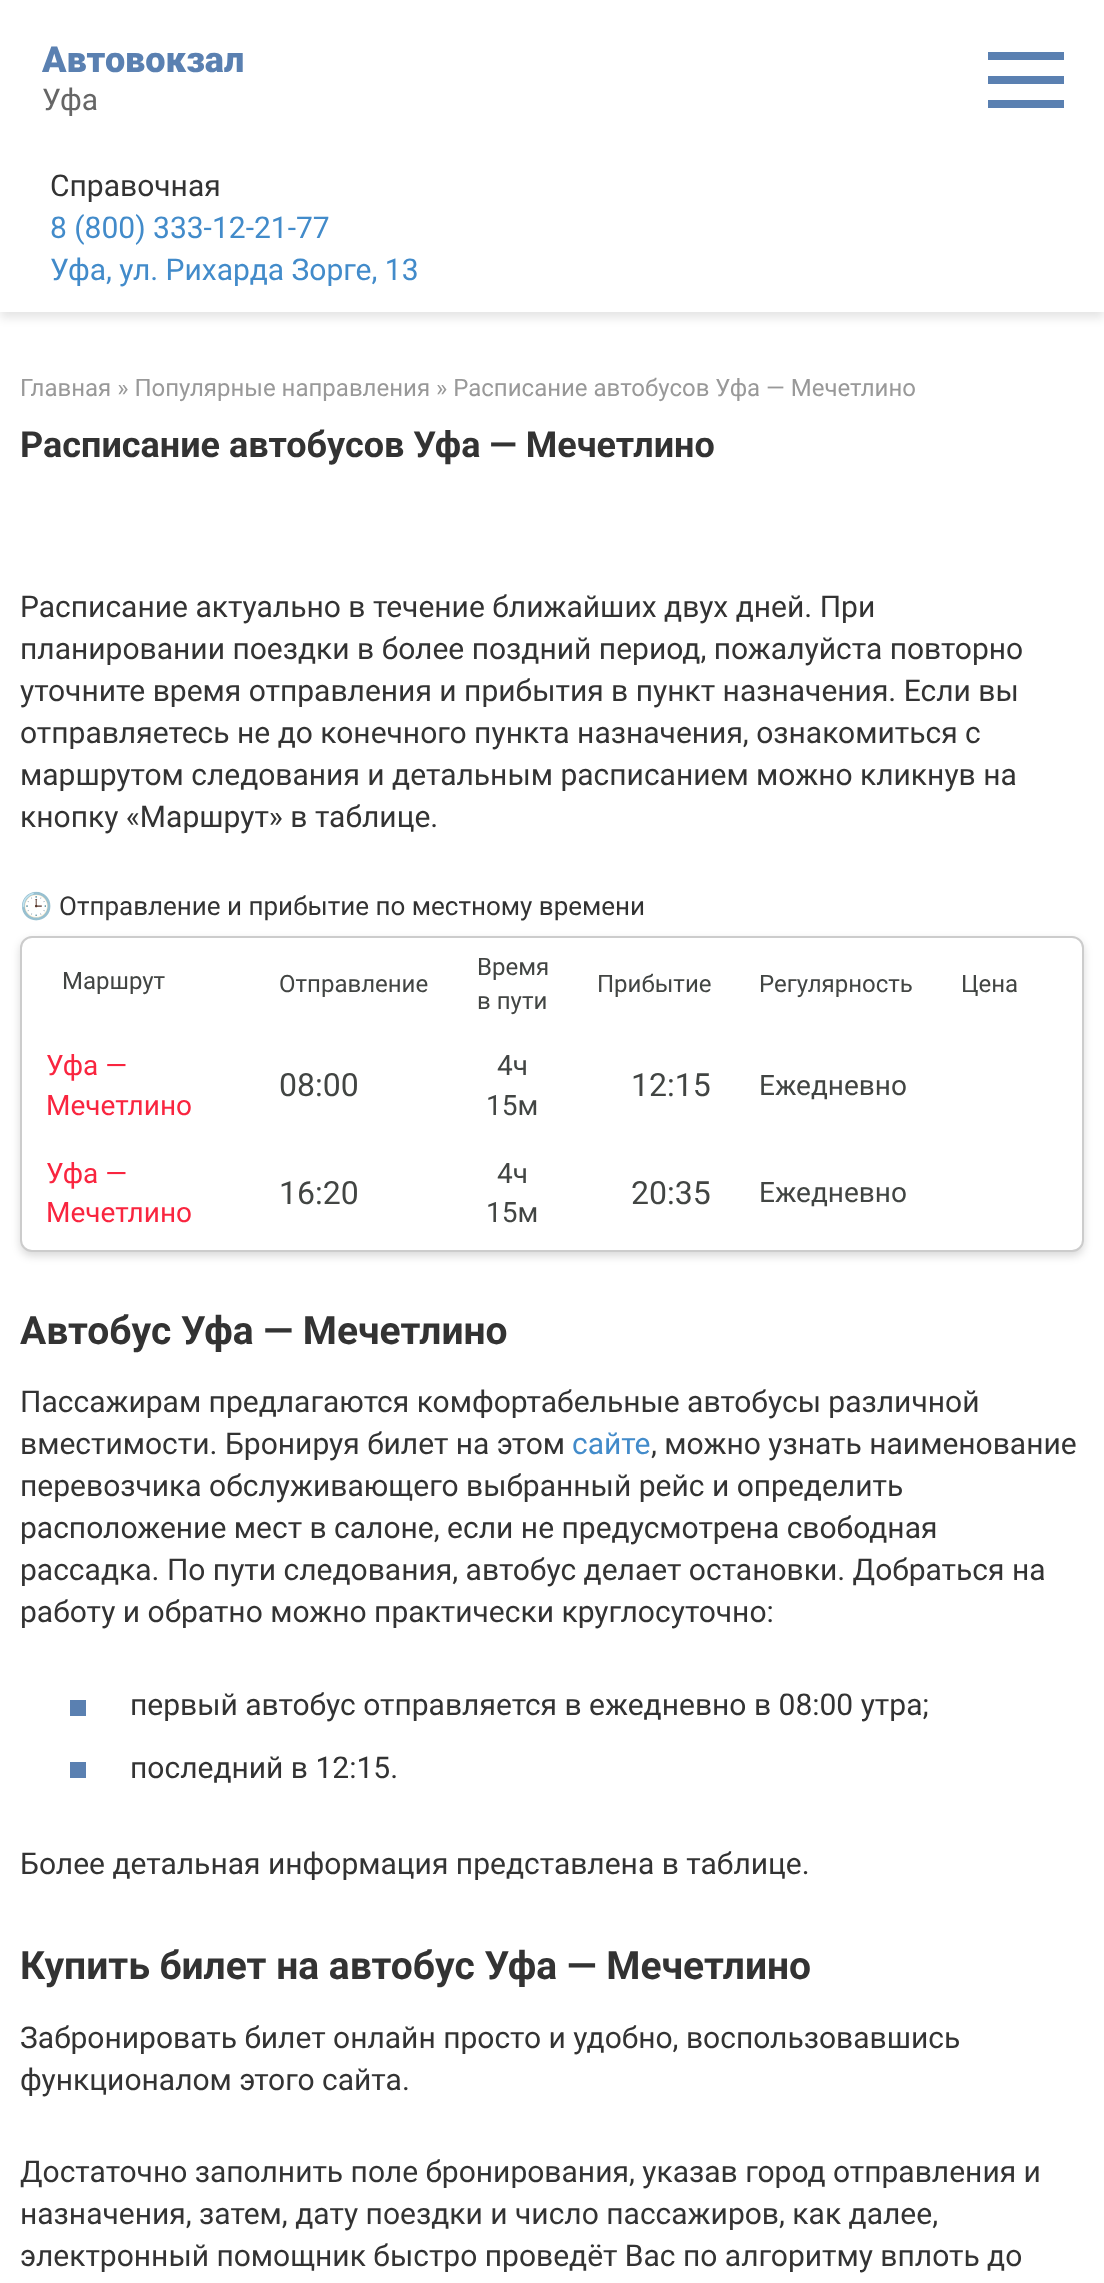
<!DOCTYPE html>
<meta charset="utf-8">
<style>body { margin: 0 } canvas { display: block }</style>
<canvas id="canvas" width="1104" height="2283"></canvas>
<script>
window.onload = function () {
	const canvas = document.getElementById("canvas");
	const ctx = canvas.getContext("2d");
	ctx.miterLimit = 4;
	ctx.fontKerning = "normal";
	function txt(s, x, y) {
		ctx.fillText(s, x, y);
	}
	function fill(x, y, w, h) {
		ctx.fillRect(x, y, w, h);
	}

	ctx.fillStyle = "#FFFFFF";
	fill(0, 0, 1104, 2283);
	ctx.fillStyle = "rgba(0, 0, 0, 0.1)";
	ctx.filter = "blur(5px)";
	ctx.beginPath();
	ctx.rect(0, 6, 1104, 312);
	ctx.fill();
	ctx.filter = "none";
	ctx.fillStyle = "#FFFFFF";
	fill(0, 0, 1104, 312);
	ctx.fillStyle = "#5A80B1";
	fill(988, 52, 76, 8);
	fill(988, 100, 76, 8);
	fill(988, 76, 76, 8);
	ctx.fillStyle = "rgba(0, 0, 0, 0.15)";
	ctx.filter = "blur(4px)";
	ctx.beginPath();
	ctx.roundRect(20, 940, 1064, 316, 12);
	ctx.fill();
	ctx.filter = "none";
	ctx.fillStyle = "#FFFFFF";
	ctx.beginPath();
	ctx.roundRect(21, 937, 1062, 314, 11);
	ctx.fill();
	ctx.strokeStyle = "#CCCCCC";
	ctx.lineWidth = 2;
	ctx.stroke();
	ctx.fillStyle = "#5A80B1";
	fill(70, 1700, 16, 16);
	fill(70, 1762, 16, 16);
	ctx.font = "900 36px Roboto";
	txt("Автовокзал", 42, 72);
	ctx.font = "30px Roboto";
	ctx.fillStyle = "#666666";
	txt("Уфа", 42, 110);
	ctx.fillStyle = "#333333";
	txt("Справочная", 50, 196);
	ctx.fillStyle = "#428BCA";
	txt("8 (800) 333-12-21-77", 50, 238);
	txt("Уфа, ул. Рихарда Зорге, 13", 50, 280);
	ctx.font = "24px Roboto";
	ctx.fillStyle = "#999999";
	txt("Главная » Популярные направления » Расписание автобусов Уфа — Мечетлино", 20, 396);
	ctx.font = "bold 36px Roboto";
	ctx.fillStyle = "#333333";
	txt("Расписание автобусов Уфа — Мечетлино", 20, 457);
	ctx.font = "30px Roboto";
	txt("Расписание актуально в течение ближайших двух дней. При", 20, 617);
	txt("планировании поездки в более поздний период, пожалуйста повторно", 20, 659);
	txt("уточните время отправления и прибытия в пункт назначения. Если вы", 20, 701);
	txt("отправляетесь не до конечного пункта назначения, ознакомиться с", 20, 743);
	txt("маршрутом следования и детальным расписанием можно кликнув на", 20, 785);
	txt("кнопку «Маршрут» в таблице.", 20, 827);
	ctx.font = "26px Noto Color Emoji";
	txt("🕒", 20, 915);
	ctx.font = "26px Roboto";
	txt("Отправление и прибытие по местному времени", 59, 915);
	ctx.font = "24px Roboto";
	ctx.fillStyle = "#424543";
	txt("Маршрут", 62, 989);
	txt("Отправление", 279, 992);
	txt("Время", 477, 975);
	txt("в пути", 477, 1009);
	txt("Прибытие", 597, 992);
	txt("Регулярность", 759, 992);
	txt("Цена", 961, 992);
	ctx.font = "28px Roboto";
	ctx.fillStyle = "#F9253F";
	txt("Уфа —", 46, 1075);
	txt("Мечетлино", 46, 1115);
	ctx.font = "32px Roboto";
	ctx.fillStyle = "#424543";
	txt("08:00", 279, 1096);
	ctx.font = "28px Roboto";
	txt("4ч", 497, 1075);
	txt("15м", 486, 1115);
	ctx.font = "32px Roboto";
	txt("12:15", 631, 1096);
	ctx.font = "28px Roboto";
	txt("Ежедневно", 759, 1095);
	ctx.fillStyle = "#F9253F";
	txt("Уфа —", 46, 1183);
	txt("Мечетлино", 46, 1222);
	ctx.font = "32px Roboto";
	ctx.fillStyle = "#424543";
	txt("16:20", 279, 1204);
	ctx.font = "28px Roboto";
	txt("4ч", 497, 1183);
	txt("15м", 486, 1222);
	ctx.font = "32px Roboto";
	txt("20:35", 631, 1204);
	ctx.font = "28px Roboto";
	txt("Ежедневно", 759, 1202);
	ctx.font = "bold 39px Roboto";
	ctx.fillStyle = "#333333";
	txt("Автобус Уфа — Мечетлино", 20, 1344);
	ctx.font = "30px Roboto";
	txt("Пассажирам предлагаются комфортабельные автобусы различной", 20, 1412);
	txt("вместимости. Бронируя билет на этом", 20, 1454);
	ctx.fillStyle = "#428BCA";
	txt("сайте", 572, 1454);
	ctx.fillStyle = "#333333";
	txt(", можно узнать наименование", 651, 1454);
	txt("перевозчика обслуживающего выбранный рейс и определить", 20, 1496);
	txt("расположение мест в салоне, если не предусмотрена свободная", 20, 1538);
	txt("рассадка. По пути следования, автобус делает остановки. Добраться на", 20, 1580);
	txt("работу и обратно можно практически круглосуточно:", 20, 1622);
	txt("первый автобус отправляется в ежедневно в 08:00 утра;", 130, 1715);
	txt("последний в 12:15.", 130, 1778);
	txt("Более детальная информация представлена в таблице.", 20, 1874);
	ctx.font = "bold 39px Roboto";
	txt("Купить билет на автобус Уфа — Мечетлино", 20, 1979);
	ctx.font = "30px Roboto";
	txt("Забронировать билет онлайн просто и удобно, воспользовавшись", 20, 2048);
	txt("функционалом этого сайта.", 20, 2090);
	txt("Достаточно заполнить поле бронирования, указав город отправления и", 20, 2182);
	txt("назначения, затем, дату поездки и число пассажиров, как далее,", 20, 2224);
	txt("электронный помощник быстро проведёт Вас по алгоритму вплоть до", 20, 2266);
};
</script>
